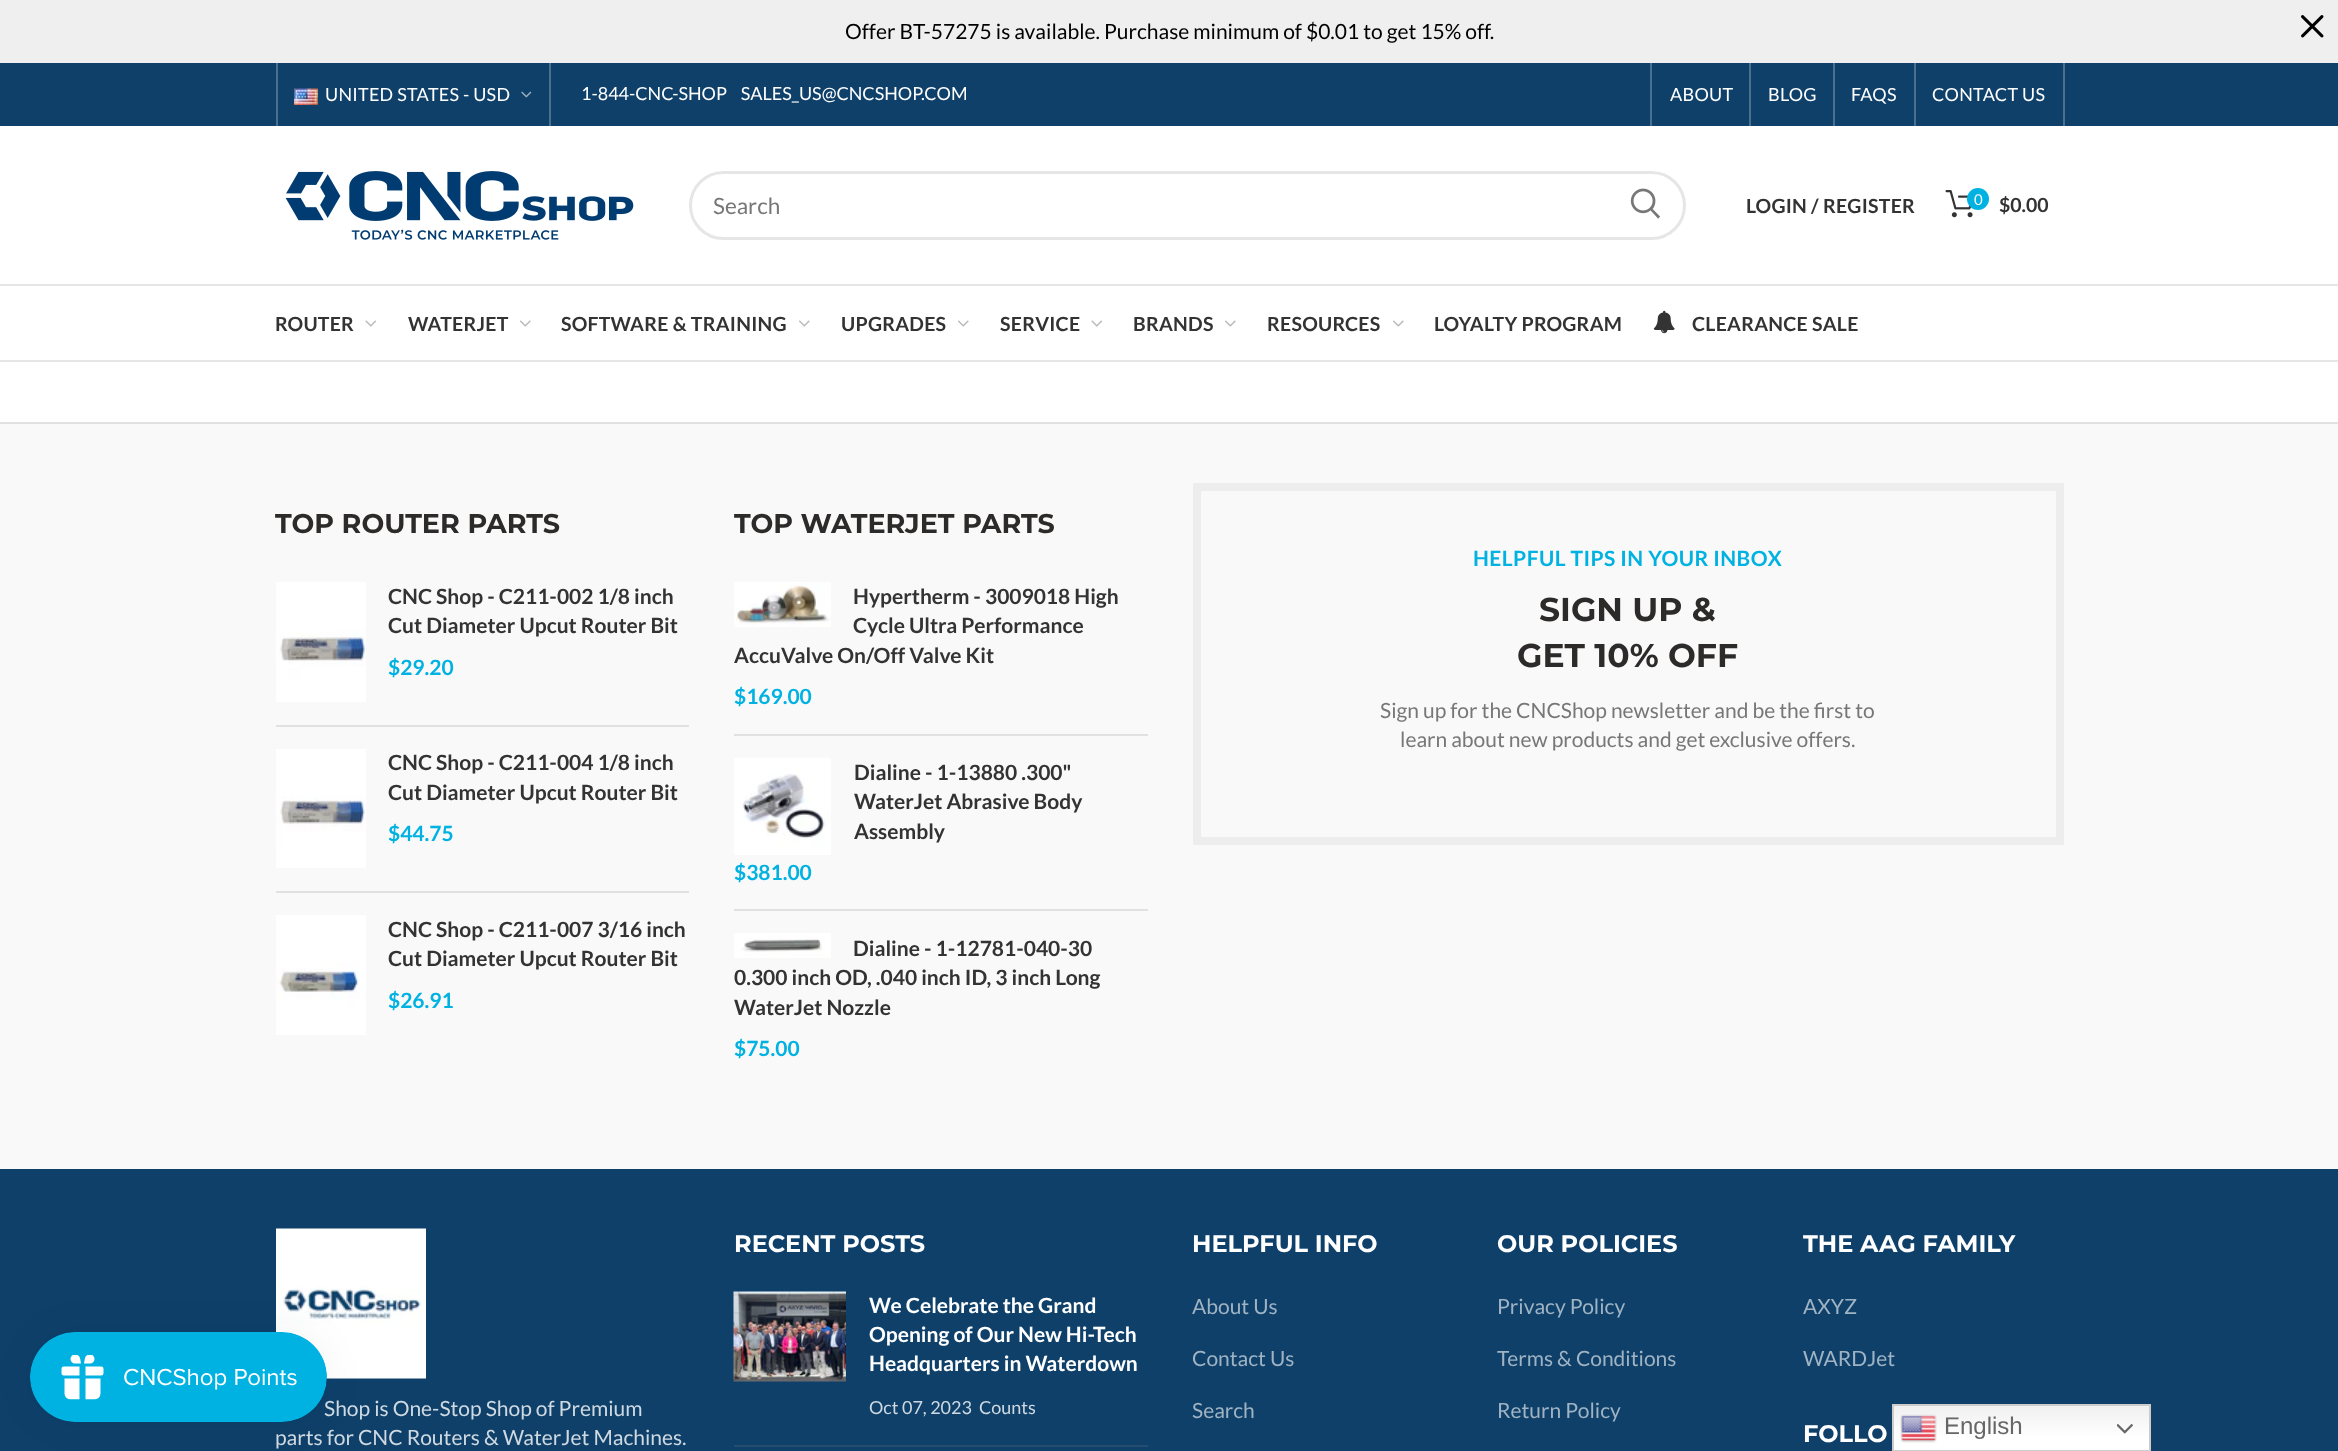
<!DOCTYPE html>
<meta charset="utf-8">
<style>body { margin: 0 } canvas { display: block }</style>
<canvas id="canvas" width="2338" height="1451"></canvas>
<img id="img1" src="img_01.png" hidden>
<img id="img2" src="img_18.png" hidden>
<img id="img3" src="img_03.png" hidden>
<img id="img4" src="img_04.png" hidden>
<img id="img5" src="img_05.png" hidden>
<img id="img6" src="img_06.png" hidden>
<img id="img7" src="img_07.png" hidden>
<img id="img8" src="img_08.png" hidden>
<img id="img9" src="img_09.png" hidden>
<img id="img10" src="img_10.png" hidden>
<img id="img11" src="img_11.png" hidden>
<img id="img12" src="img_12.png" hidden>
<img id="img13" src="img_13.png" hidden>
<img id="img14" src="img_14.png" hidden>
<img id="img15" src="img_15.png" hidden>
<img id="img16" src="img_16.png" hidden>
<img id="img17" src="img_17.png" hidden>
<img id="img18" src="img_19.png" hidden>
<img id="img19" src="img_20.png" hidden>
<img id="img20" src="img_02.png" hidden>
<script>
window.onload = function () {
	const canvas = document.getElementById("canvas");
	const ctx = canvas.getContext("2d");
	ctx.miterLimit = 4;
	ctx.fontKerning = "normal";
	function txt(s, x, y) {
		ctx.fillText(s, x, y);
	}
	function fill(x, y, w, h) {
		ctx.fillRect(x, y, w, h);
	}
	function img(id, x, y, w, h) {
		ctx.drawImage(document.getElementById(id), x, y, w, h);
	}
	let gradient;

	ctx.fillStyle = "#EFEFEF";
	fill(0, 0, 2338, 1451);
	img("img1", 2301, 15, 23, 23);
	ctx.fillStyle = "#0E406A";
	fill(0, 1169, 2338, 282);
	img("img2", 276, 1228, 150, 151);
	ctx.fillStyle = "rgba(0, 0, 0, 0.05)";
	ctx.filter = "blur(19px)";
	ctx.beginPath();
	ctx.roundRect(30, 1332, 297, 90, 45);
	ctx.fill();
	ctx.filter = "none";
	ctx.fillStyle = "#FFFFFF";
	fill(0, 126, 2338, 296);
	ctx.fillStyle = "#0E406A";
	fill(0, 63, 2338, 63);
	ctx.fillStyle = "#4A708F";
	fill(549, 63, 2, 63);
	fill(276, 63, 2, 63);
	img("img3", 294, 88, 24, 17);
	img("img4", 521, 91, 11, 7);
	fill(2063, 63, 2, 63);
	fill(1650, 63, 2, 63);
	fill(1749, 63, 2, 63);
	fill(1833, 63, 2, 63);
	fill(1914, 63, 2, 63);
	img("img5", 285, 171, 349, 69);
	ctx.beginPath();
	ctx.roundRect(690.5, 172.5, 994, 66, 33);
	ctx.strokeStyle = "#E6E6E6";
	ctx.lineWidth = 3;
	ctx.stroke();
	img("img6", 1630, 188, 30, 31);
	img("img7", 1945, 190, 28, 28);
	ctx.fillStyle = "#00B2E2";
	ctx.beginPath();
	ctx.arc(1978, 199, 11, 0, Math.PI * 2);
	ctx.fill();
	ctx.fillStyle = "#E6E6E6";
	fill(0, 284, 2338, 2);
	fill(0, 360, 2338, 2);
	img("img8", 365, 320, 12, 7);
	img("img9", 520, 320, 11, 7);
	img("img9", 799, 320, 11, 7);
	img("img9", 958, 320, 11, 7);
	img("img8", 1091, 320, 12, 7);
	img("img9", 1225, 320, 11, 7);
	img("img9", 1393, 320, 11, 7);
	img("img10", 1653, 310, 22, 24);
	ctx.fillStyle = "#F9F9F9";
	fill(0, 424, 2338, 745);
	ctx.fillStyle = "#E1E1E1";
	fill(0, 422, 2338, 2);
	fill(276, 725, 413, 2);
	img("img11", 276, 582, 90, 120);
	fill(276, 891, 413, 2);
	img("img12", 276, 749, 90, 119);
	img("img13", 276, 915, 90, 120);
	fill(734, 734, 414, 2);
	img("img14", 734, 582, 97, 45);
	fill(734, 909, 414, 2);
	img("img15", 734, 758, 97, 97);
	img("img16", 734, 933, 97, 25);
	ctx.strokeStyle = "#EDEDED";
	ctx.lineWidth = 8;
	ctx.strokeRect(1197, 487, 863, 354);
	ctx.fillStyle = "#254D6F";
	fill(734, 1445, 414, 2);
	img("img17", 733, 1291, 113, 91);
	gradient = ctx.createLinearGradient(2021, 1404, 2021, 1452);
	gradient.addColorStop(0, "#EFEFEF");
	gradient.addColorStop(0.7, "#FFFFFF");
	ctx.fillStyle = gradient;
	fill(1894, 1406, 255, 44);
	ctx.strokeStyle = "#CCCCCC";
	ctx.lineWidth = 2;
	ctx.strokeRect(1893, 1405, 257, 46);
	img("img18", 1900, 1414, 37, 29);
	img("img19", 2117, 1424, 16, 10);
	ctx.font = "21px Lato";
	ctx.fillStyle = "#000000";
	txt("Offer BT-57275 is available. Purchase minimum of $0.01 to get 15% off.", 845, 39);
	ctx.letterSpacing = "0.25px";
	ctx.font = "18px Lato";
	ctx.fillStyle = "#FFFFFF";
	txt("UNITED STATES - USD", 325, 101);
	ctx.letterSpacing = "0px";
	txt("1-844-CNC-SHOP    SALES_US@CNCSHOP.COM", 581, 100);
	ctx.letterSpacing = "0.25px";
	txt("ABOUT", 1670, 101);
	txt("BLOG", 1768, 101);
	txt("FAQS", 1851, 101);
	txt("CONTACT US", 1932, 101);
	ctx.letterSpacing = "0px";
	ctx.font = "22.5px Lato";
	ctx.fillStyle = "#777777";
	txt("Search", 713, 214);
	ctx.letterSpacing = "0.25px";
	ctx.font = "bold 19.5px Lato";
	ctx.fillStyle = "#333333";
	txt("LOGIN / REGISTER", 1746, 213);
	ctx.letterSpacing = "0px";
	ctx.font = "15px Lato";
	ctx.fillStyle = "#FFFFFF";
	txt("0", 1974, 205);
	ctx.font = "bold 19.5px Lato";
	ctx.fillStyle = "#333333";
	txt("$0.00", 1999, 212);
	ctx.letterSpacing = "0.25px";
	txt("ROUTER", 275, 331);
	txt("WATERJET", 408, 331);
	txt("SOFTWARE & TRAINING", 561, 331);
	txt("UPGRADES", 841, 331);
	txt("SERVICE", 1000, 331);
	txt("BRANDS", 1133, 331);
	txt("RESOURCES", 1267, 331);
	txt("LOYALTY PROGRAM", 1434, 331);
	txt("CLEARANCE SALE", 1692, 331);
	ctx.letterSpacing = "0px";
	ctx.font = "bold 27px Montserrat";
	ctx.fillStyle = "#2D2A2A";
	txt("TOP ROUTER PARTS", 275, 533);
	ctx.font = "bold 21px Lato";
	ctx.fillStyle = "#333333";
	txt("CNC Shop - C211-002 1/8 inch", 388, 604);
	txt("Cut Diameter Upcut Router Bit", 388, 633);
	ctx.fillStyle = "#00B2E2";
	txt("$29.20", 388, 675);
	ctx.fillStyle = "#333333";
	txt("CNC Shop - C211-004 1/8 inch", 388, 770);
	txt("Cut Diameter Upcut Router Bit", 388, 800);
	ctx.fillStyle = "#00B2E2";
	txt("$44.75", 388, 841);
	ctx.fillStyle = "#333333";
	txt("CNC Shop - C211-007 3/16 inch", 388, 937);
	txt("Cut Diameter Upcut Router Bit", 388, 966);
	ctx.fillStyle = "#00B2E2";
	txt("$26.91", 388, 1008);
	ctx.font = "bold 27px Montserrat";
	ctx.fillStyle = "#2D2A2A";
	txt("TOP WATERJET PARTS", 734, 533);
	ctx.font = "bold 21px Lato";
	ctx.fillStyle = "#333333";
	txt("Hypertherm - 3009018 High", 853, 604);
	txt("Cycle Ultra Performance", 853, 633);
	txt("AccuValve On/Off Valve Kit", 734, 663);
	ctx.fillStyle = "#00B2E2";
	txt("$169.00", 734, 704);
	ctx.fillStyle = "#333333";
	txt("Dialine - 1-13880 .300\"", 854, 780);
	txt("WaterJet Abrasive Body", 854, 809);
	txt("Assembly", 854, 839);
	ctx.fillStyle = "#00B2E2";
	txt("$381.00", 734, 880);
	ctx.fillStyle = "#333333";
	txt("Dialine - 1-12781-040-30", 853, 956);
	txt("0.300 inch OD, .040 inch ID, 3 inch Long", 734, 985);
	txt("WaterJet Nozzle", 734, 1015);
	ctx.fillStyle = "#00B2E2";
	txt("$75.00", 734, 1056);
	ctx.letterSpacing = "0.45px";
	txt("HELPFUL TIPS IN YOUR INBOX", 1473, 566);
	ctx.letterSpacing = "0px";
	ctx.font = "bold 33px Montserrat";
	ctx.fillStyle = "#2D2A2A";
	txt("SIGN UP &", 1539, 621);
	txt("GET 10% OFF", 1517, 667);
	ctx.font = "21px Lato";
	ctx.fillStyle = "#777777";
	txt("Sign up for the CNCShop newsletter and be the first to", 1380, 718);
	txt("learn about new products and get exclusive offers.", 1400, 747);
	ctx.font = "bold 24px Montserrat";
	ctx.fillStyle = "#FFFFFF";
	txt("RECENT POSTS", 734, 1252);
	ctx.font = "bold 21px Lato";
	txt("We Celebrate the Grand", 869, 1313);
	txt("Opening of Our New Hi-Tech", 869, 1342);
	txt("Headquarters in Waterdown", 869, 1371);
	ctx.font = "18px Lato";
	ctx.fillStyle = "#CFD9E1";
	txt("Oct 07, 2023", 869, 1414);
	txt("Counts", 979, 1414);
	ctx.font = "bold 24px Montserrat";
	ctx.fillStyle = "#FFFFFF";
	txt("HELPFUL INFO", 1192, 1252);
	ctx.font = "21px Lato";
	ctx.fillStyle = "#9FB3C3";
	txt("About Us", 1192, 1314);
	txt("Contact Us", 1192, 1366);
	txt("Search", 1192, 1418);
	ctx.font = "bold 24px Montserrat";
	ctx.fillStyle = "#FFFFFF";
	txt("OUR POLICIES", 1497, 1252);
	ctx.font = "21px Lato";
	ctx.fillStyle = "#9FB3C3";
	txt("Privacy Policy", 1497, 1314);
	txt("Terms & Conditions", 1497, 1366);
	txt("Return Policy", 1497, 1418);
	ctx.font = "bold 24px Montserrat";
	ctx.fillStyle = "#FFFFFF";
	txt("THE AAG FAMILY", 1803, 1252);
	ctx.font = "21px Lato";
	ctx.fillStyle = "#9FB3C3";
	txt("AXYZ", 1803, 1314);
	txt("WARDJet", 1803, 1366);
	ctx.fillStyle = "#CFD9E1";
	txt("Shop is One-Stop Shop of Premium", 324, 1416);
	img("img20", 30, 1332, 297, 90);
	txt("parts for CNC Routers & WaterJet Machines.", 275, 1445);
	ctx.font = "bold 24px Montserrat";
	ctx.fillStyle = "#FFFFFF";
	txt("FOLLO", 1803, 1442);
	ctx.font = "24px Liberation Sans";
	ctx.fillStyle = "#666666";
	txt("English", 1944, 1434);
};
</script>
